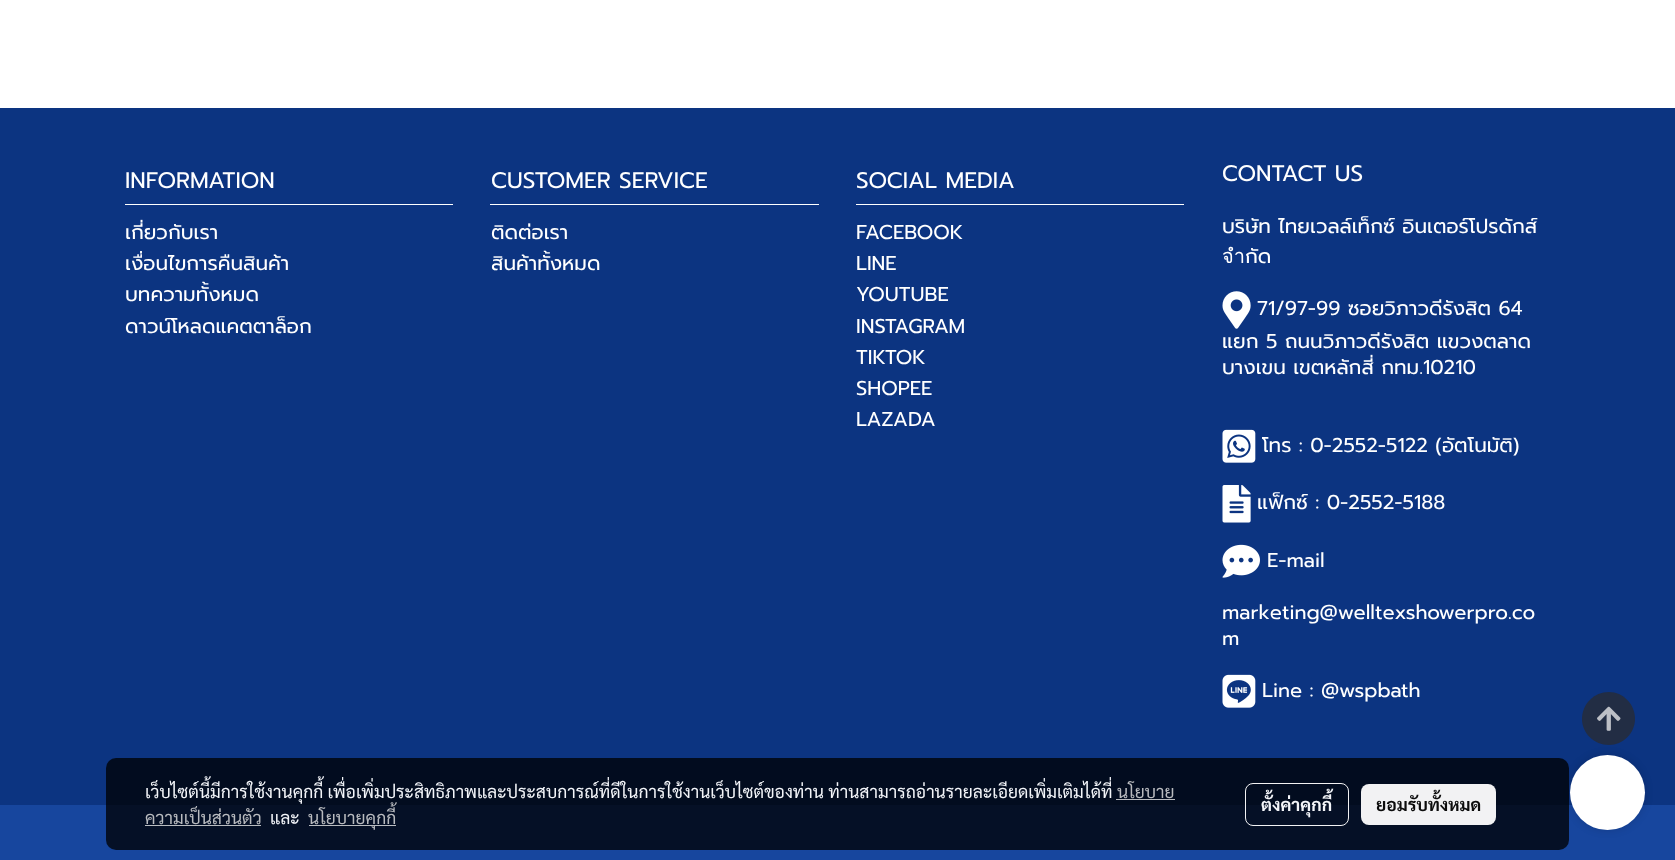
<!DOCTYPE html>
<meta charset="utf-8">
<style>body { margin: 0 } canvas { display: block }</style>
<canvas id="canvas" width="1675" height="860"></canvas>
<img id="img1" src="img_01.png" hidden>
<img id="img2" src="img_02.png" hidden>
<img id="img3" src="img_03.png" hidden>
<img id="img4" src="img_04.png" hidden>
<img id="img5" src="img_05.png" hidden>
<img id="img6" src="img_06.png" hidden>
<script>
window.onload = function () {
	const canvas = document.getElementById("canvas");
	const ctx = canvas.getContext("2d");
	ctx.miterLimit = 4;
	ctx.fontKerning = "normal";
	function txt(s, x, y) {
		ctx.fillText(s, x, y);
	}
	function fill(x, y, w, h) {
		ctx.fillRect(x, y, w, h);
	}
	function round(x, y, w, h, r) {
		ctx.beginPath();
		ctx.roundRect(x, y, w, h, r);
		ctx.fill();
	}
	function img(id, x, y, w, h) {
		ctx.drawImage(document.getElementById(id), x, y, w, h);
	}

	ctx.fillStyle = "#FFFFFF";
	fill(0, 0, 1675, 860);
	ctx.fillStyle = "#0C3481";
	fill(0, 108, 1675, 697);
	ctx.fillStyle = "#FFFFFF";
	fill(125, 204, 328, 1);
	fill(490, 204, 329, 1);
	fill(856, 204, 328, 1);
	img("img1", 1222, 291, 29, 38);
	img("img2", 1222, 429, 34, 34);
	img("img3", 1222, 485, 29, 38);
	img("img4", 1222, 544, 38, 34);
	img("img5", 1222, 674, 34, 34);
	ctx.fillStyle = "#17469E";
	fill(0, 805, 1675, 55);
	ctx.fillStyle = "rgba(0, 0, 0, 0.14)";
	ctx.filter = "blur(4.5px)";
	ctx.beginPath();
	ctx.roundRect(1570, 755, 75, 75, 37.5);
	ctx.fill();
	ctx.filter = "none";
	ctx.fillStyle = "#222D44";
	ctx.beginPath();
	ctx.moveTo(1609, 692);
	ctx.bezierCurveTo(1594, 692, 1582, 704, 1582, 719);
	ctx.bezierCurveTo(1582, 733, 1594, 745, 1609, 745);
	ctx.bezierCurveTo(1623, 745, 1635, 733, 1635, 719);
	ctx.bezierCurveTo(1635, 704, 1623, 692, 1609, 692);
	ctx.closePath();
	ctx.fill();
	img("img6", 1597, 706, 24, 25);
	ctx.fillStyle = "rgba(0, 0, 0, 0.76)";
	round(106, 758, 1463, 92, 10);
	ctx.fillStyle = "#B9BBBF";
	fill(1116, 799, 59, 1);
	ctx.fillStyle = "#B9BCC0";
	fill(145, 825, 116, 1);
	fill(309, 825, 87, 1);
	ctx.beginPath();
	ctx.roundRect(1245.5, 783.5, 103, 42, 7.5);
	ctx.strokeStyle = "rgba(255, 255, 255, 0.95)";
	ctx.stroke();
	ctx.fillStyle = "rgba(255, 255, 255, 0.95)";
	round(1361, 784, 135, 41, 8);
	ctx.fillStyle = "#FFFFFF";
	ctx.beginPath();
	ctx.arc(1607.5, 792.5, 37.5, 0, Math.PI * 2);
	ctx.fill();
	ctx.font = "22.5px Prompt";
	txt("INFORMATION", 125, 188);
	ctx.font = "20px Prompt";
	txt("เกี่ยวกับเรา", 125, 239);
	txt("เงื่อนไขการคืนสินค้า", 125, 270);
	txt("บทความทั้งหมด", 125, 301);
	txt("ดาวน์โหลดแคตตาล็อก", 125, 333);
	ctx.font = "22.5px Prompt";
	txt("CUSTOMER SERVICE", 491, 188);
	ctx.font = "20px Prompt";
	txt("ติดต่อเรา", 491, 239);
	txt("สินค้าทั้งหมด", 491, 270);
	ctx.font = "22.5px Prompt";
	txt("SOCIAL MEDIA", 856, 188);
	ctx.font = "20px Prompt";
	txt("FACEBOOK", 856, 239);
	txt("LINE", 856, 270);
	txt("YOUTUBE", 856, 301);
	txt("INSTAGRAM", 856, 333);
	txt("TIKTOK", 856, 364);
	txt("SHOPEE", 856, 395);
	txt("LAZADA", 856, 426);
	ctx.font = "22.5px Prompt";
	txt("CONTACT US", 1222, 181);
	ctx.font = "20px Prompt";
	txt("บริษัท ไทยเวลล์เท็กซ์ อินเตอร์โปรดักส์", 1222, 233);
	txt("จำกัด", 1222, 263);
	txt("71/97-99 ซอยวิภาวดีรังสิต 64", 1257, 315);
	txt("แยก 5 ถนนวิภาวดีรังสิต แขวงตลาด", 1222, 348);
	txt("บางเขน เขตหลักสี่ กทม.10210", 1222, 374);
	txt("โทร : 0-2552-5122 (อัตโนมัติ)", 1262, 452);
	txt("แฟ็กซ์ : 0-2552-5188", 1257, 509);
	txt("E-mail", 1267, 567);
	txt("marketing@welltexshowerpro.co", 1222, 619);
	txt("m", 1222, 645);
	txt("Line : @wspbath", 1262, 697);
	ctx.font = "17.5px Sarabun";
	ctx.fillStyle = "#F3F5F9";
	txt("เว็บไซต์นี้มีการใช้งานคุกกี้ เพื่อเพิ่มประสิทธิภาพและประสบการณ์ที่ดีในการใช้งานเว็บไซต์ของท่าน ท่านสามารถอ่านรายละเอียดเพิ่มเติมได้ที่", 145, 798);
	ctx.fillStyle = "#B9BBBF";
	txt("นโยบาย", 1117, 798);
	txt("ความเป็นส่วนตัว", 145, 824);
	ctx.fillStyle = "#F3F5F9";
	txt("และ", 270, 824);
	ctx.fillStyle = "#B9BBBF";
	txt("นโยบายคุกกี้", 308, 824);
	ctx.font = "bold 17.5px Sarabun";
	ctx.fillStyle = "#F3F5F9";
	txt("ตั้งค่าคุกกี้", 1261, 811);
	ctx.fillStyle = "#0C0C0C";
	txt("ยอมรับทั้งหมด", 1376, 811);
};
</script>
